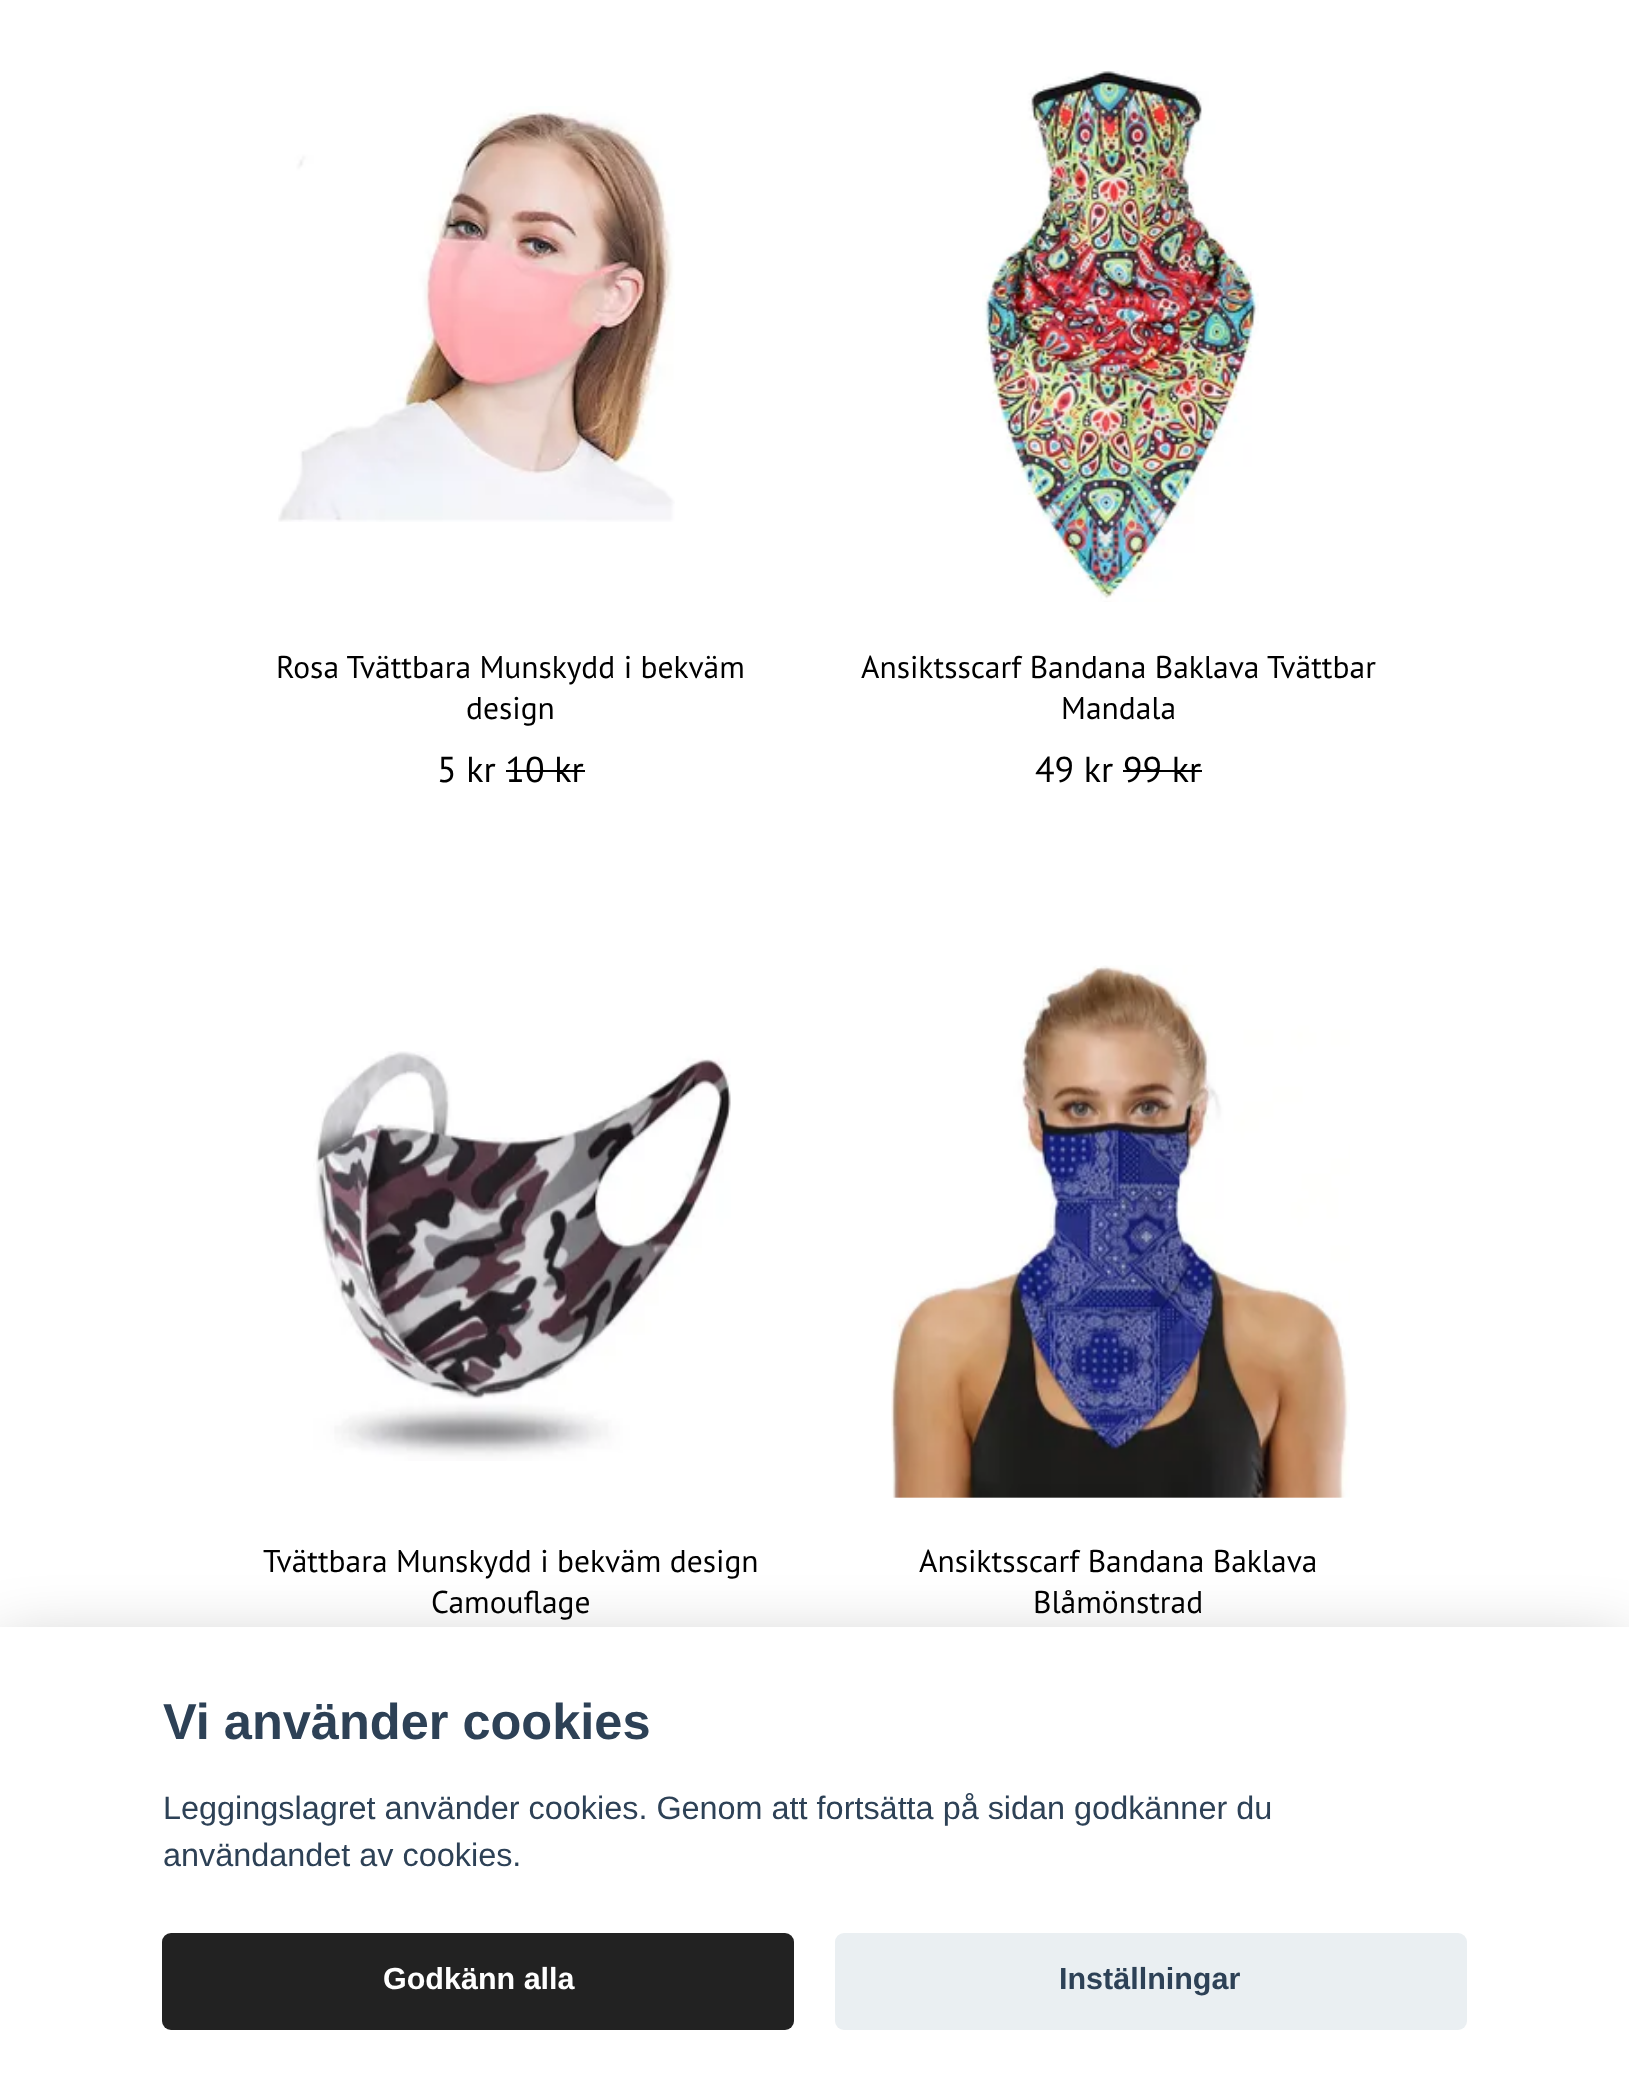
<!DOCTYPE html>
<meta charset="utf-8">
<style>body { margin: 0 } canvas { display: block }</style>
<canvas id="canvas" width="1629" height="2097"></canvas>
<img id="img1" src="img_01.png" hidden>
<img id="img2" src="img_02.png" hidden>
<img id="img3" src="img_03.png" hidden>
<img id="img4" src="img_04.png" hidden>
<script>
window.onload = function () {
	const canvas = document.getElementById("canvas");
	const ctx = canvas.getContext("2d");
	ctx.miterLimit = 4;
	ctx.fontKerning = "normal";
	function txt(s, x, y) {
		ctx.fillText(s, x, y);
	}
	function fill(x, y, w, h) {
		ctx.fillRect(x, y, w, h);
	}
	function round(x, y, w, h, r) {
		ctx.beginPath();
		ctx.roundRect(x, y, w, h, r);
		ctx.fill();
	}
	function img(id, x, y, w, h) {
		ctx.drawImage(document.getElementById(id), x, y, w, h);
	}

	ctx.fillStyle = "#FFFFFF";
	fill(0, 0, 1629, 2097);
	img("img1", 278, 106, 397, 416);
	ctx.fillStyle = "#000000";
	fill(506, 770, 79, 2);
	img("img2", 982, 70, 277, 532);
	fill(1123, 770, 79, 2);
	img("img3", 313, 1051, 418, 410);
	img("img4", 891, 965, 459, 533);
	ctx.fillStyle = "rgba(2, 2, 3, 0.28)";
	ctx.filter = "blur(34px)";
	ctx.beginPath();
	ctx.rect(0, 1649, 1629, 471);
	ctx.fill();
	ctx.filter = "none";
	ctx.fillStyle = "#FFFFFF";
	fill(0, 1627, 1629, 470);
	ctx.fillStyle = "#222222";
	round(162, 1933, 632, 97, 9);
	ctx.fillStyle = "#EAEFF2";
	round(835, 1933, 632, 97, 9);
	ctx.font = "31.5px PT Sans";
	ctx.fillStyle = "#000000";
	txt("Rosa Tvättbara Munskydd i bekväm", 276, 678);
	txt("design", 466, 719);
	ctx.font = "36px PT Sans";
	txt("5 kr 10 kr", 437, 782);
	ctx.font = "31.5px PT Sans";
	txt("Ansiktsscarf Bandana Baklava Tvättbar", 861, 678);
	txt("Mandala", 1061, 719);
	ctx.font = "36px PT Sans";
	txt("49 kr 99 kr", 1035, 782);
	ctx.font = "31.5px PT Sans";
	txt("Tvättbara Munskydd i bekväm design", 263, 1572);
	txt("Camouflage", 431, 1613);
	txt("Ansiktsscarf Bandana Baklava", 919, 1572);
	txt("Blåmönstrad", 1033, 1613);
	ctx.font = "bold 50.5px Liberation Sans";
	ctx.fillStyle = "#2D4156";
	txt("Vi använder cookies", 163, 1739);
	ctx.font = "32.4px Liberation Sans";
	txt("Leggingslagret använder cookies. Genom att fortsätta på sidan godkänner du", 163, 1819);
	txt("användandet av cookies.", 163, 1866);
	ctx.font = "bold 30.5px Liberation Sans";
	ctx.fillStyle = "#FFFFFF";
	txt("Godkänn alla", 383, 1989);
	ctx.fillStyle = "#2D4156";
	txt("Inställningar", 1059, 1989);
};
</script>
